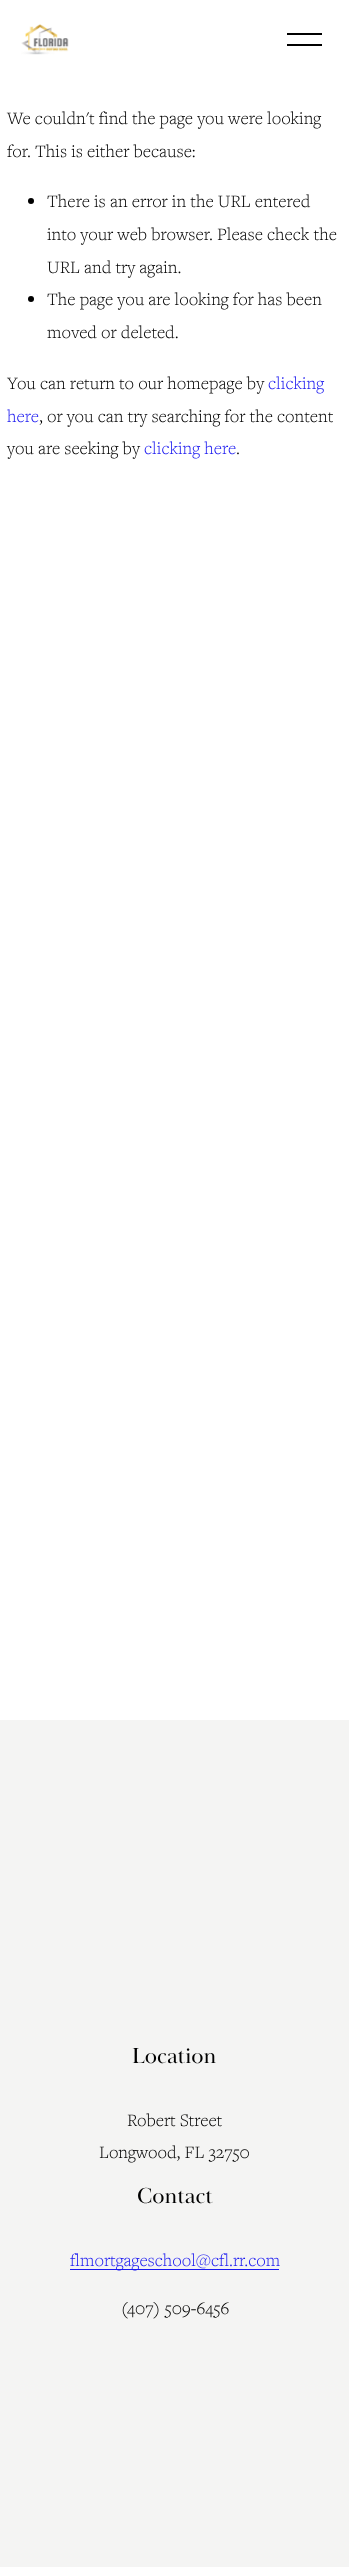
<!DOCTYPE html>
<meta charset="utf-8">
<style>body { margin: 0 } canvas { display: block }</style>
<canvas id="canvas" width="349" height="2567"></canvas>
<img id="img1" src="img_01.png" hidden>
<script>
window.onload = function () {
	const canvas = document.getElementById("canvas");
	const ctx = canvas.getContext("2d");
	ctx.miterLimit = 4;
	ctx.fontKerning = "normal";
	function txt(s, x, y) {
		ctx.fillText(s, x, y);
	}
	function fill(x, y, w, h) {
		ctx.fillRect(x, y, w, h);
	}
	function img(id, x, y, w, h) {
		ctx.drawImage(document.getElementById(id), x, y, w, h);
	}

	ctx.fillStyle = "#FFFFFF";
	fill(0, 0, 349, 2567);
	img("img1", 21, 24, 48, 31);
	ctx.fillStyle = "#000000";
	fill(287, 33, 35, 2);
	fill(287, 44, 35, 2);
	ctx.beginPath();
	ctx.arc(31, 201, 3, 0, Math.PI * 2);
	ctx.fill();
	ctx.beginPath();
	ctx.arc(31, 299, 3, 0, Math.PI * 2);
	ctx.fill();
	ctx.fillStyle = "#F4F4F3";
	fill(0, 1720, 349, 847);
	ctx.fillStyle = "#1A18F0";
	fill(70, 2269, 209, 1);
	ctx.font = "300 18.2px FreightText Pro";
	ctx.fillStyle = "#000000";
	txt("We couldn't find the page you were looking", 7, 124);
	txt("for. This is either because:", 7, 157);
	txt("There is an error in the URL entered", 47, 207);
	txt("into your web browser. Please check the", 47, 240);
	txt("URL and try again.", 47, 273);
	txt("The page you are looking for has been", 47, 305);
	txt("moved or deleted.", 47, 338);
	txt("You can return to our homepage by", 7, 389);
	ctx.fillStyle = "#1A18F0";
	txt("clicking", 268, 389);
	txt("here", 7, 422);
	ctx.fillStyle = "#000000";
	txt(", or you can try searching for the content", 39, 422);
	txt("you are seeking by", 7, 454);
	ctx.fillStyle = "#1A18F0";
	txt("clicking here", 144, 454);
	ctx.fillStyle = "#000000";
	txt(".", 236, 454);
	ctx.font = "22.5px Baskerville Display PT";
	txt("Location", 132, 2063);
	ctx.font = "300 18.2px FreightText Pro";
	txt("Robert Street", 127, 2126);
	txt("Longwood, FL 32750", 99, 2158);
	ctx.font = "22.5px Baskerville Display PT";
	txt("Contact", 137, 2203);
	ctx.font = "300 18.2px FreightText Pro";
	ctx.fillStyle = "#1A18F0";
	txt("flmortgageschool@cfl.rr.com", 70, 2266);
	ctx.fillStyle = "#000000";
	txt("(407) 509-6456", 121, 2314);
};
</script>
